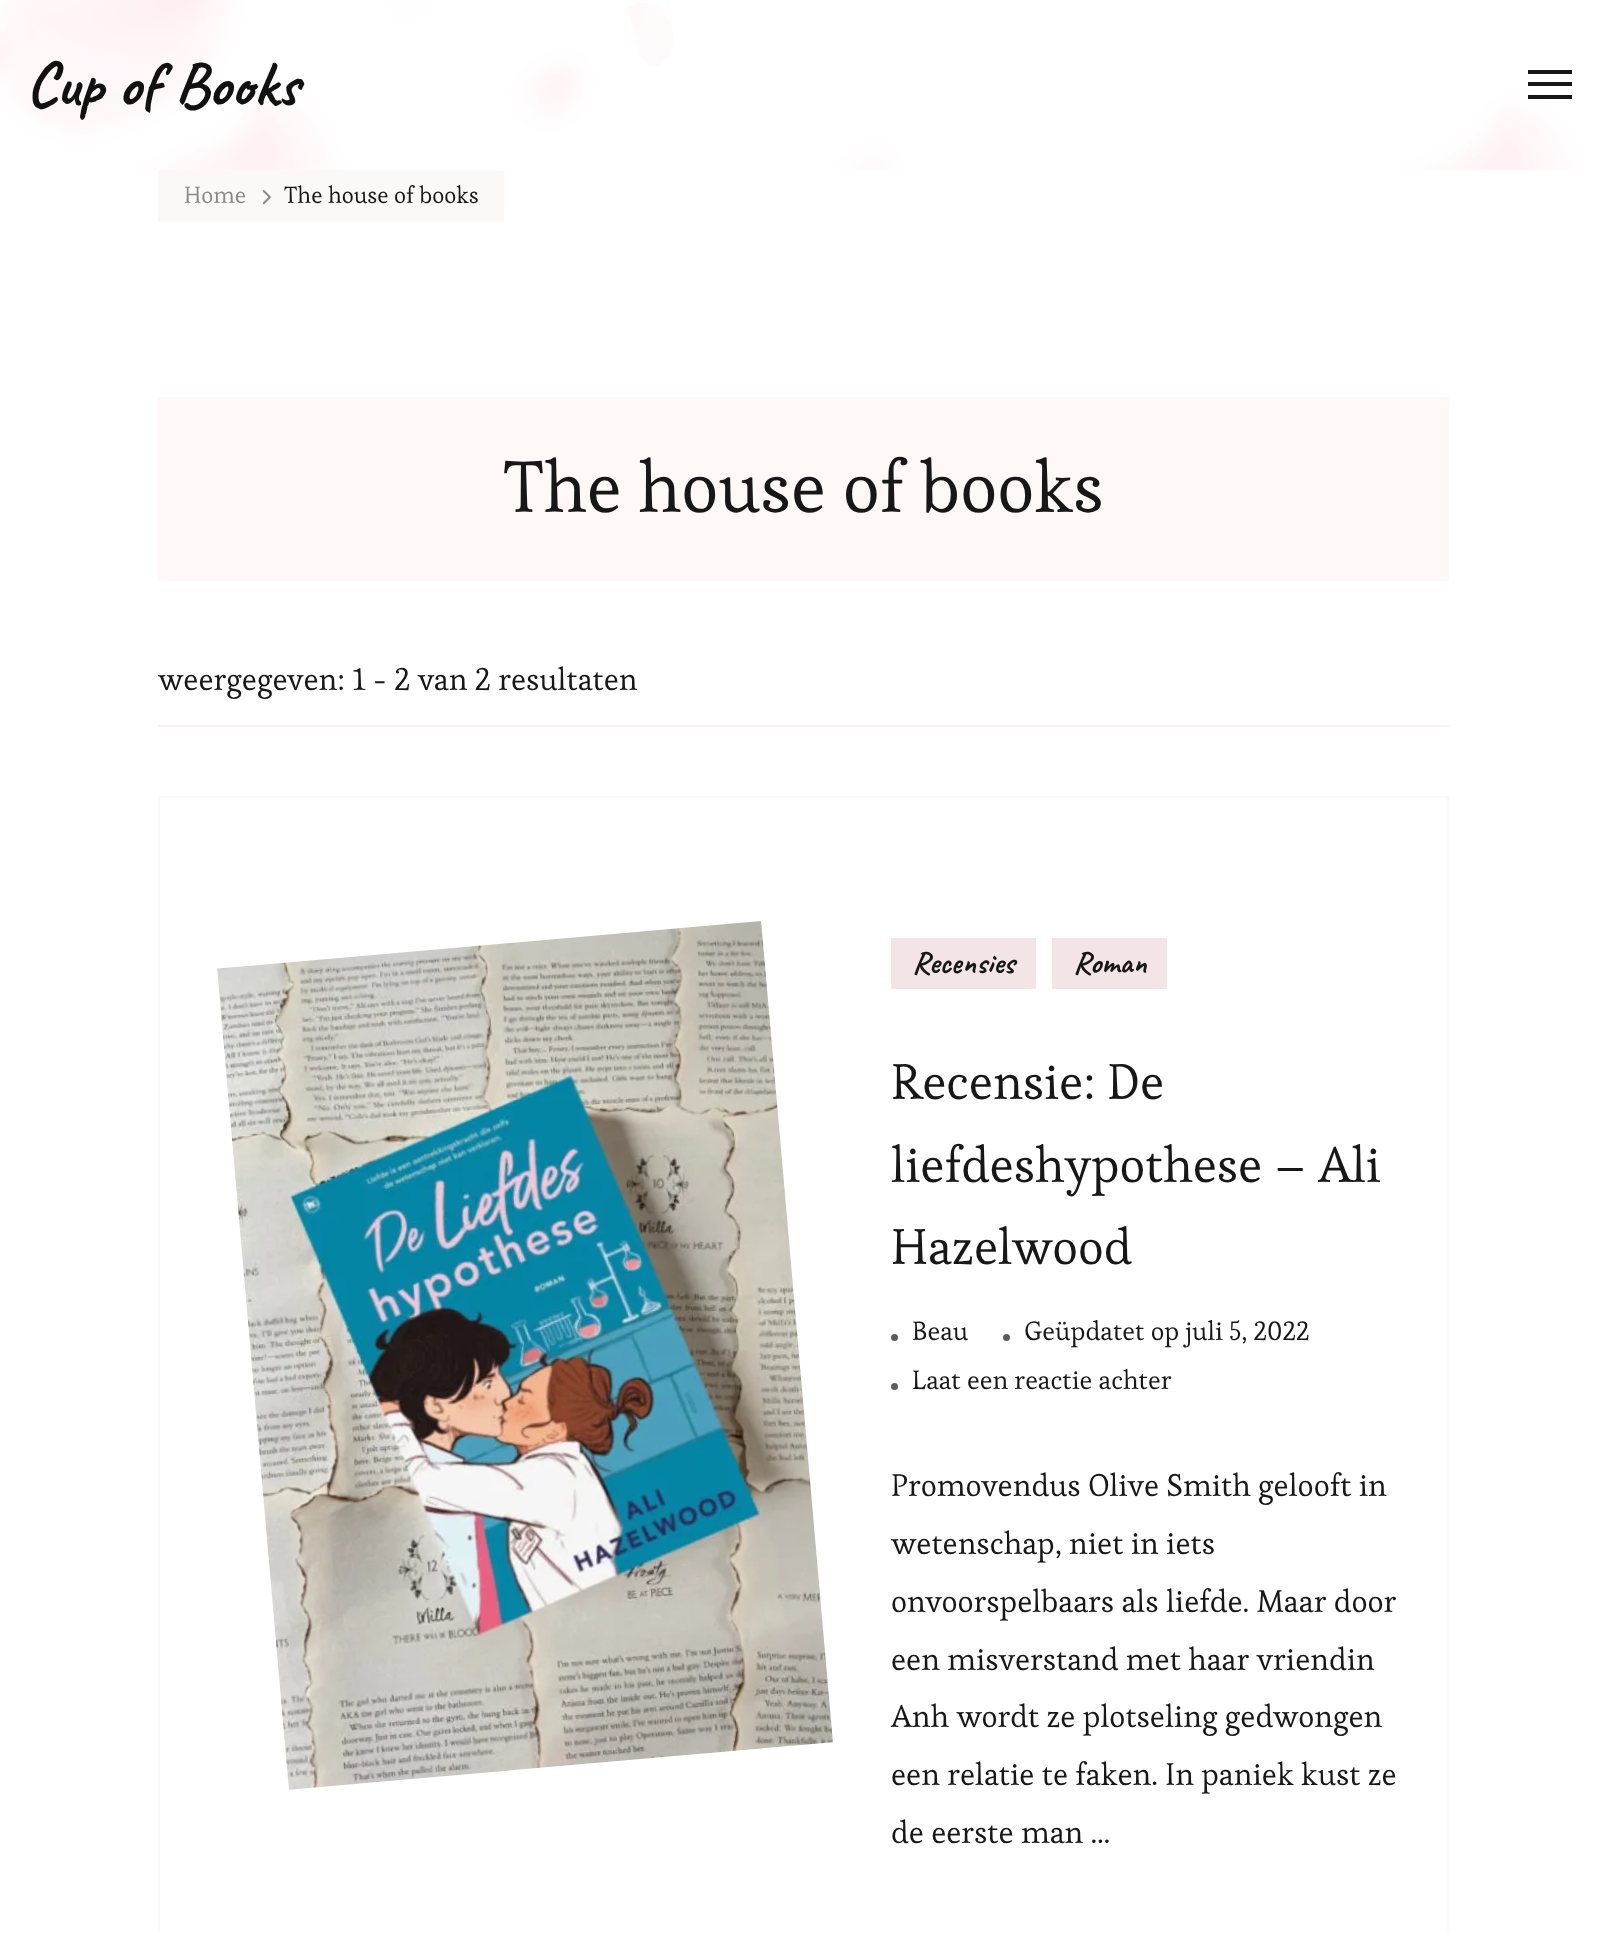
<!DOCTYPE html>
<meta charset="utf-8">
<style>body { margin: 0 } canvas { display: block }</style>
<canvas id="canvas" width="1606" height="1933"></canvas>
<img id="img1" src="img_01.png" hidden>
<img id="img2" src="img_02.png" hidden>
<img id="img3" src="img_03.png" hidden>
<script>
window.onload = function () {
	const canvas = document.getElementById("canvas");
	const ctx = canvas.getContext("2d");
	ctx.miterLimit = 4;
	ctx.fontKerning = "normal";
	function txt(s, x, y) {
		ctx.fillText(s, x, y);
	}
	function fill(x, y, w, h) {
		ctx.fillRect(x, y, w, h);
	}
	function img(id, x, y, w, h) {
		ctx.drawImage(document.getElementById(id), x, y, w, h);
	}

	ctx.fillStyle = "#FFFFFF";
	fill(0, 0, 1606, 1933);
	img("img1", 0, 0, 1579, 170);
	ctx.fillStyle = "#171717";
	fill(1528, 70, 44, 4);
	fill(1528, 82, 44, 4);
	fill(1528, 95, 44, 4);
	ctx.fillStyle = "#FCF8F8";
	fill(158, 170, 346, 52);
	img("img2", 262, 190, 9, 15);
	ctx.fillStyle = "#FEF9F6";
	fill(158, 397, 1291, 184);
	ctx.fillStyle = "#F9F2F2";
	fill(158, 725, 1291, 2);
	ctx.strokeStyle = "#FCF8F8";
	ctx.lineWidth = 2;
	ctx.strokeRect(159, 797, 1289, 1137);
	img("img3", 217, 921, 616, 869);
	ctx.fillStyle = "#F3E5E5";
	fill(891, 938, 145, 51);
	fill(1052, 938, 115, 51);
	ctx.fillStyle = "#5D5D5D";
	ctx.beginPath();
	ctx.arc(894.5, 1337.5, 3.5, 0, Math.PI * 2);
	ctx.fill();
	ctx.beginPath();
	ctx.arc(1006.5, 1337.5, 3.5, 0, Math.PI * 2);
	ctx.fill();
	ctx.beginPath();
	ctx.arc(894.5, 1386.5, 3.5, 0, Math.PI * 2);
	ctx.fill();
	ctx.font = "bold 63px Caveat";
	ctx.fillStyle = "#111111";
	txt("Cup of Books", 26, 105);
	ctx.font = "23.25px Esteban";
	ctx.fillStyle = "#8A8888";
	txt("Home", 184, 203);
	ctx.fillStyle = "#171717";
	txt("The house of books", 284, 203);
	ctx.font = "71.75px Esteban";
	txt("The house of books", 503, 512);
	ctx.font = "31.1px Esteban";
	txt("weergegeven: 1 - 2 van 2 resultaten", 158, 690);
	ctx.font = "bold 31.5px Caveat";
	txt("Recensies", 912, 973);
	txt("Roman", 1073, 973);
	ctx.font = "49.75px Esteban";
	txt("Recensie: De", 891, 1099);
	txt("liefdeshypothese – Ali", 891, 1182);
	txt("Hazelwood", 891, 1264);
	ctx.font = "26.25px Esteban";
	txt("Beau", 912, 1340);
	txt("Geüpdatet op juli 5, 2022", 1024, 1340);
	txt("Laat een reactie achter", 912, 1389);
	ctx.font = "31.1px Esteban";
	txt("Promovendus Olive Smith gelooft in", 891, 1496);
	txt("wetenschap, niet in iets", 891, 1554);
	txt("onvoorspelbaars als liefde. Maar door", 891, 1612);
	txt("een misverstand met haar vriendin", 891, 1670);
	txt("Anh wordt ze plotseling gedwongen", 891, 1727);
	txt("een relatie te faken. In paniek kust ze", 891, 1785);
	txt("de eerste man …", 891, 1843);
};
</script>
